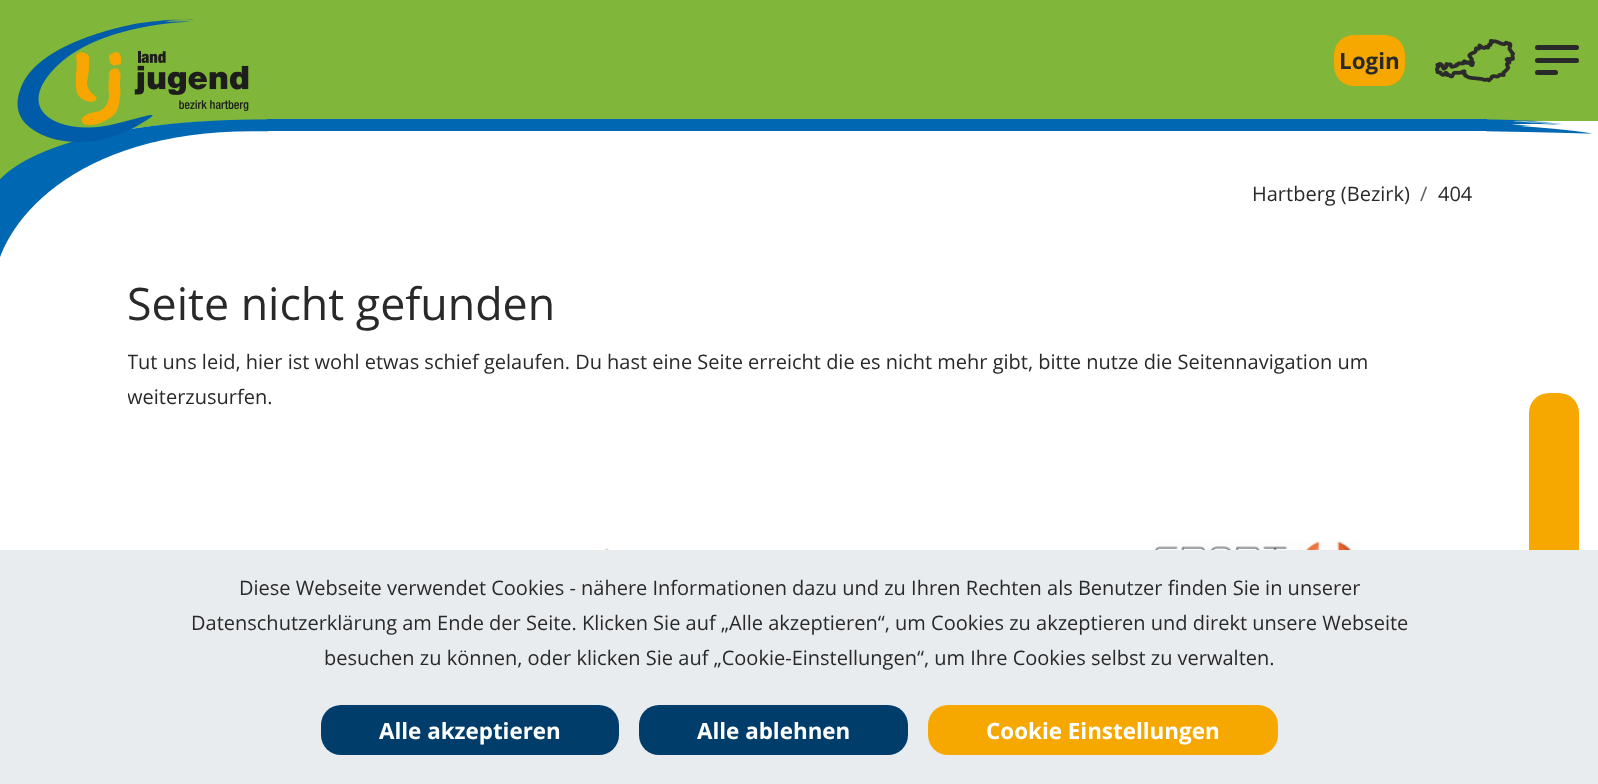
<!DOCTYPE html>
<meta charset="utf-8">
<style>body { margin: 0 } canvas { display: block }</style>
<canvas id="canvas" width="1598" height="784"></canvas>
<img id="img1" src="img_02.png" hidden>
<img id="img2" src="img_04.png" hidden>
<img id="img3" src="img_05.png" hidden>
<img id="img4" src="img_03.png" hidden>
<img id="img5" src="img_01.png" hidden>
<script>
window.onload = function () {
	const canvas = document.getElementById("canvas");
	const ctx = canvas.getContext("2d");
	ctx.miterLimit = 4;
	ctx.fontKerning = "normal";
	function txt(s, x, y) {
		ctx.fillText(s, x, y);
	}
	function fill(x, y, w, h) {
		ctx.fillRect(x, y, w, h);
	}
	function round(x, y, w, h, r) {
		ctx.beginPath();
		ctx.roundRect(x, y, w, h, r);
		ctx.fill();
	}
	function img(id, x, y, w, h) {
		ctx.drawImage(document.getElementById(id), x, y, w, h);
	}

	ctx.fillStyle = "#FFFFFF";
	fill(0, 0, 1598, 784);
	ctx.fillStyle = "#80B639";
	fill(0, 0, 1598, 121);
	ctx.fillStyle = "#F7A800";
	round(1334, 35, 71, 51, 20);
	img("img1", 1435, 39, 80, 44);
	ctx.fillStyle = "#292929";
	round(1535, 45, 44, 5, 2.5);
	round(1535, 58, 44, 5, 2.5);
	round(1535, 70, 23, 5, 2.5);
	img("img2", 594, 548, 110, 2);
	img("img3", 1153, 541, 206, 9);
	ctx.fillStyle = "#F7A800";
	round(1529, 393, 50, 221, 20);
	ctx.fillStyle = "#E9ECEF";
	fill(0, 550, 1598, 234);
	ctx.fillStyle = "#003D6B";
	round(321, 705, 298, 50, 20);
	round(639, 705, 269, 50, 20);
	ctx.fillStyle = "#F7A800";
	round(928, 705, 350, 50, 20);
	ctx.font = "bold 22.4px Open Sans";
	ctx.fillStyle = "#292929";
	txt("Login", 1339, 69);
	ctx.font = "20px Open Sans";
	txt("Hartberg (Bezirk)", 1252, 201);
	ctx.fillStyle = "#5F5F5F";
	txt("/", 1420, 201);
	ctx.fillStyle = "#292929";
	txt("404", 1438, 201);
	img("img4", 0, 119, 1592, 138);
	img("img5", 17, 19, 232, 123);
	ctx.font = "44.75px Open Sans";
	txt("Seite nicht gefunden", 127, 320);
	ctx.save();
	ctx.beginPath();
	ctx.rect(128, 274, 1345, 140);
	ctx.clip();
	ctx.font = "20px Open Sans";
	txt("Tut uns leid, hier ist wohl etwas schief gelaufen. Du hast eine Seite erreicht die es nicht mehr gibt, bitte nutze die Seitennavigation um", 127, 369);
	txt("weiterzusurfen.", 127, 404);
	ctx.restore();
	ctx.font = "20px Open Sans";
	txt("Diese Webseite verwendet Cookies - nähere Informationen dazu und zu Ihren Rechten als Benutzer finden Sie in unserer", 239, 595);
	txt("Datenschutzerklärung am Ende der Seite. Klicken Sie auf „Alle akzeptieren“, um Cookies zu akzeptieren und direkt unsere Webseite", 191, 630);
	txt("besuchen zu können, oder klicken Sie auf „Cookie-Einstellungen“, um Ihre Cookies selbst zu verwalten.", 324, 665);
	ctx.font = "bold 22.4px Open Sans";
	ctx.fillStyle = "#FFFFFF";
	txt("Alle akzeptieren", 379, 739);
	txt("Alle ablehnen", 697, 739);
	txt("Cookie Einstellungen", 986, 739);
};
</script>
